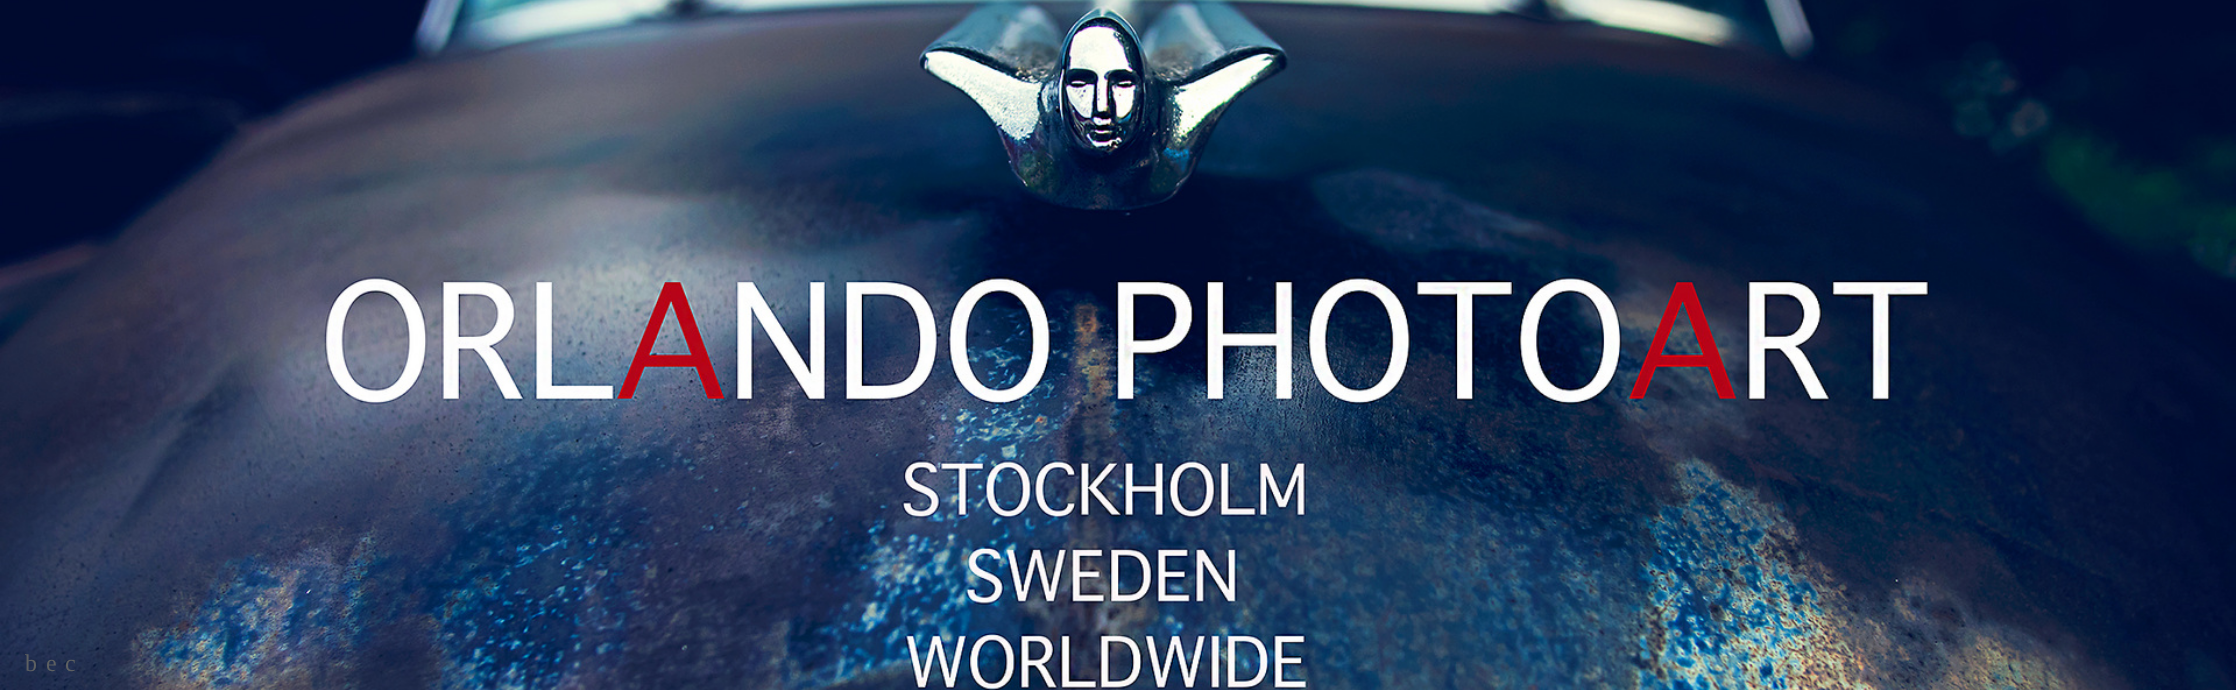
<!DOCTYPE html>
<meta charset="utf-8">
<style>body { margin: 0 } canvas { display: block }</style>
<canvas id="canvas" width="2236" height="690"></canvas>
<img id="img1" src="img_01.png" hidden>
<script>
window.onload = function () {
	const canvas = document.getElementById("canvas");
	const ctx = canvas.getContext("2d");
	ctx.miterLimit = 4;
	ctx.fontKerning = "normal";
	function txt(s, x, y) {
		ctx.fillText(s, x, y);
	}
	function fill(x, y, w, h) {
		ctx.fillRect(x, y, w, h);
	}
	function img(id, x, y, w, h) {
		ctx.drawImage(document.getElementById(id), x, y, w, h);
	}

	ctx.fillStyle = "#FFFFFF";
	fill(0, 0, 2236, 690);
	img("img1", 0, 0, 2236, 690);
	ctx.font = "24px Liberation Serif";
	ctx.fillStyle = "#5D6061";
	txt("b", 25, 671);
	txt("e", 46, 671);
	txt("c", 65, 671);
};
</script>
